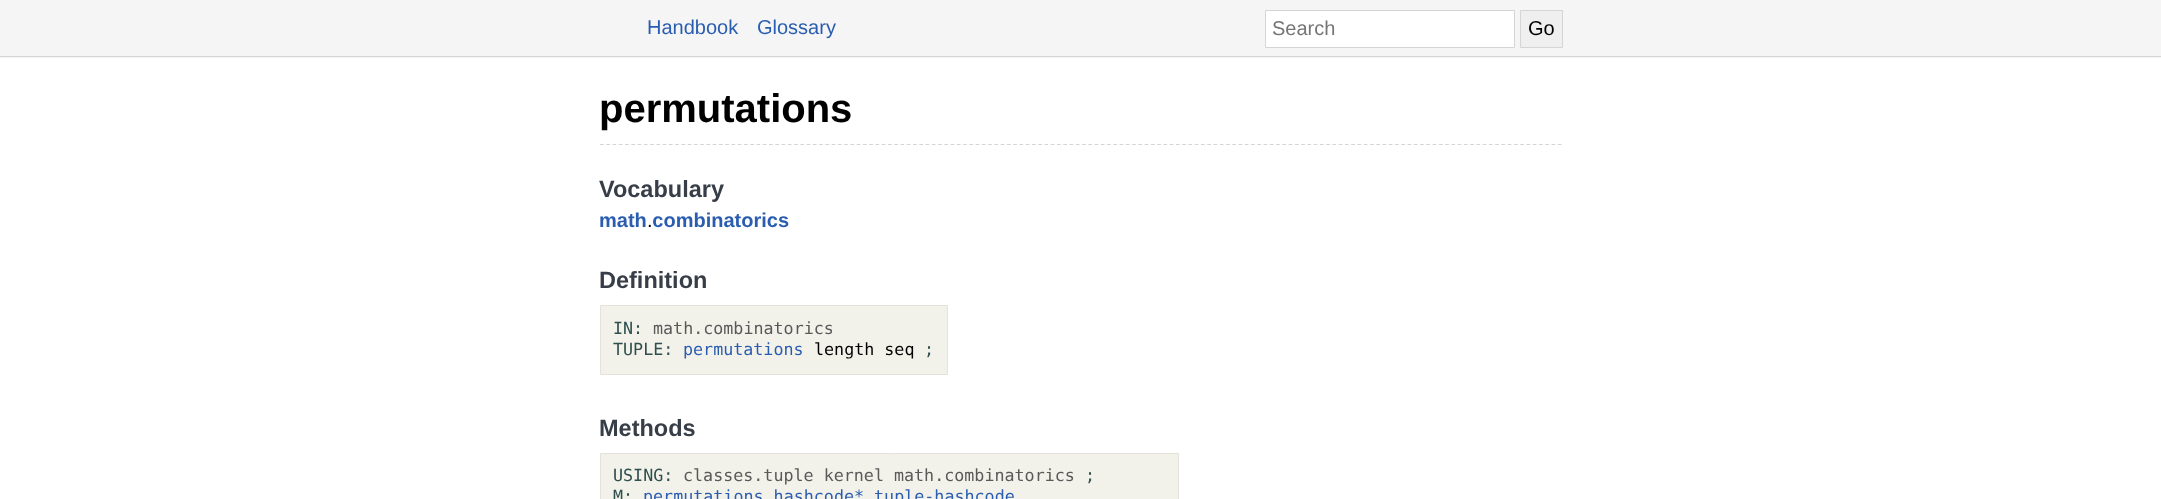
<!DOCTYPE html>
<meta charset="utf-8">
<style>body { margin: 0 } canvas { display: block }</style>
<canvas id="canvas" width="2161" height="499"></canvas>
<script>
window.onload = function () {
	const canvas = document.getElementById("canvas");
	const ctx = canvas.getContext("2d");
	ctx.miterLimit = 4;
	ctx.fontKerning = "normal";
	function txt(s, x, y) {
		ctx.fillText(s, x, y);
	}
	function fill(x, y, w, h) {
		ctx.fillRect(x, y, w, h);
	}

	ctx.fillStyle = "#FFFFFF";
	fill(0, 0, 2161, 499);
	ctx.fillStyle = "#F5F5F5";
	fill(0, 0, 2161, 58);
	ctx.fillStyle = "#D5D5D5";
	fill(0, 56, 2161, 1);
	ctx.fillStyle = "#FFFFFF";
	ctx.beginPath();
	ctx.rect(1265.5, 10.5, 249, 37);
	ctx.fill();
	ctx.strokeStyle = "#D5D5D5";
	ctx.stroke();
	ctx.fillStyle = "#EFEFEF";
	ctx.beginPath();
	ctx.rect(1520.5, 10.5, 42, 37);
	ctx.fill();
	ctx.stroke();
	ctx.beginPath();
	ctx.moveTo(600, 144.5);
	ctx.lineTo(1562.5, 144.5);
	ctx.lineWidth = 1.2;
	ctx.setLineDash([3.75, 2.51]);
	ctx.stroke();
	ctx.fillStyle = "#F3F2EA";
	ctx.beginPath();
	ctx.rect(600.5, 305.5, 347, 69);
	ctx.fill();
	ctx.strokeStyle = "#E3E2DB";
	ctx.lineWidth = 1;
	ctx.setLineDash([]);
	ctx.stroke();
	ctx.beginPath();
	ctx.rect(600.5, 453.5, 578, 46);
	ctx.fill();
	ctx.stroke();
	ctx.font = "20px Liberation Sans";
	ctx.fillStyle = "#2A5DB0";
	txt("Handbook", 647, 34);
	txt("Glossary", 757, 34);
	ctx.fillStyle = "#757575";
	txt("Search", 1272, 35);
	ctx.fillStyle = "#000000";
	txt("Go", 1528, 35);
	ctx.font = "bold 40px Liberation Sans";
	txt("permutations", 599, 122);
	ctx.font = "bold 23.5px Liberation Sans";
	ctx.fillStyle = "#373E48";
	txt("Vocabulary", 599, 197);
	ctx.font = "bold 20px Liberation Sans";
	ctx.fillStyle = "#2A5DB0";
	txt("math combinatorics", 599, 227);
	ctx.font = "20px Liberation Sans";
	ctx.fillStyle = "#000000";
	txt(".", 647, 227);
	ctx.font = "bold 23.5px Liberation Sans";
	ctx.fillStyle = "#373E48";
	txt("Definition", 599, 288);
	ctx.font = "16.7px DejaVu Sans Mono";
	ctx.fillStyle = "#2F4F4F";
	txt("IN:", 613, 334);
	ctx.fillStyle = "#595959";
	txt("math.combinatorics", 653, 334);
	ctx.fillStyle = "#2F4F4F";
	txt("TUPLE:", 613, 355);
	ctx.fillStyle = "#2A5DB0";
	txt("permutations", 683, 355);
	ctx.fillStyle = "#000000";
	txt("length seq", 814, 355);
	ctx.fillStyle = "#2F4F4F";
	txt(";", 924, 355);
	ctx.font = "bold 23.5px Liberation Sans";
	ctx.fillStyle = "#373E48";
	txt("Methods", 599, 436);
	ctx.font = "16.7px DejaVu Sans Mono";
	ctx.fillStyle = "#2F4F4F";
	txt("USING:", 613, 481);
	ctx.fillStyle = "#595959";
	txt("classes.tuple kernel math.combinatorics", 683, 481);
	ctx.fillStyle = "#2F4F4F";
	txt(";", 1085, 481);
	txt("M:", 613, 502);
	ctx.fillStyle = "#2A5DB0";
	txt("permutations hashcode* tuple-hashcode", 643, 502);
};
</script>
